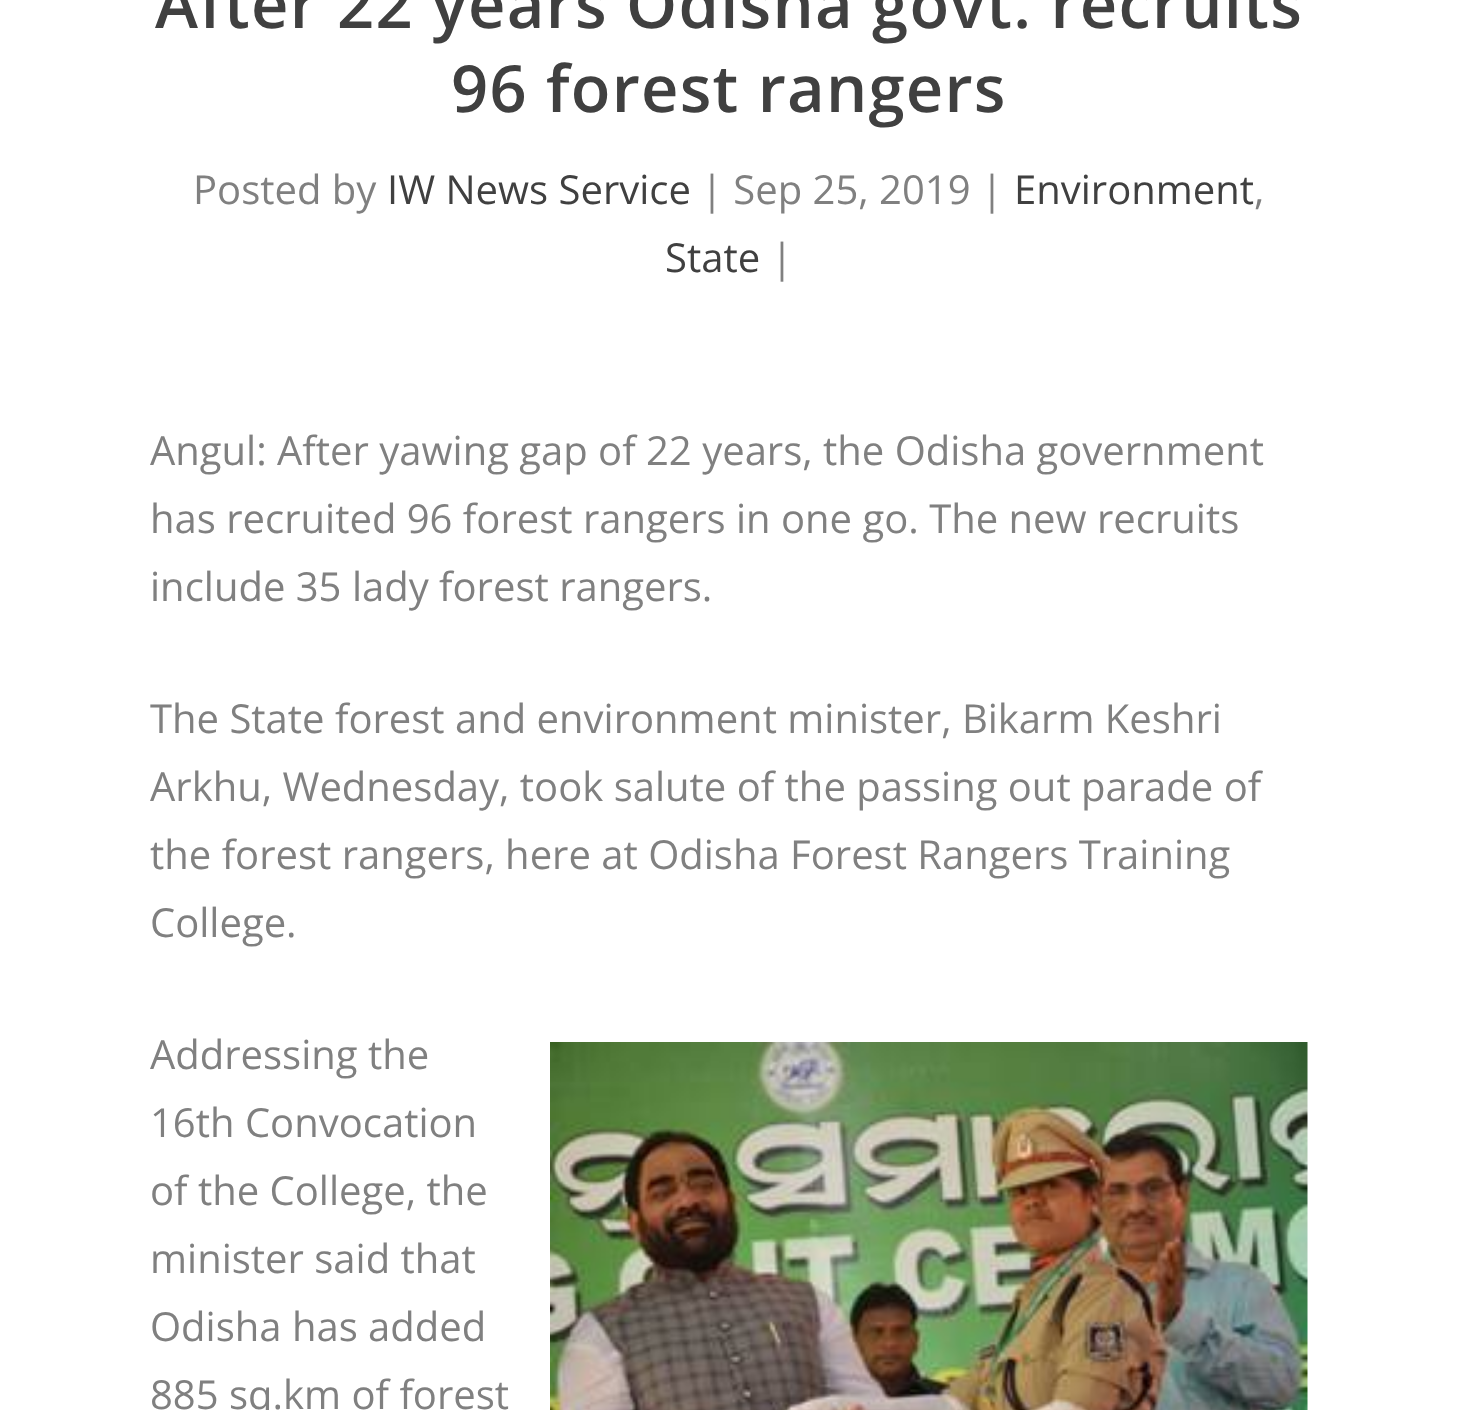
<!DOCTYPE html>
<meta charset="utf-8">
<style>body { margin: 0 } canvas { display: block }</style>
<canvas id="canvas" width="1457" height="1410"></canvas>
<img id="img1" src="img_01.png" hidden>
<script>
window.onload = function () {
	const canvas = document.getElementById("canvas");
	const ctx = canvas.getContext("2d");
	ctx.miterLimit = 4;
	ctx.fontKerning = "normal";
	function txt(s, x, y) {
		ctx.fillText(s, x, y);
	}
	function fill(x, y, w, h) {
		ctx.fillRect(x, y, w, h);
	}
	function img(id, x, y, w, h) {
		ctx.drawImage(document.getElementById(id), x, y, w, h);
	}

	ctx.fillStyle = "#FFFFFF";
	fill(0, 0, 1457, 1410);
	img("img1", 550, 1042, 758, 368);
	ctx.letterSpacing = "1.25px";
	ctx.font = "600 65px Open Sans";
	ctx.fillStyle = "#404040";
	txt("After 22 years Odisha govt. recruits", 155, 28);
	txt("96 forest rangers", 451, 112);
	ctx.letterSpacing = "0px";
	ctx.font = "40px Open Sans";
	ctx.fillStyle = "#808080";
	txt("Posted by", 193, 204);
	ctx.fillStyle = "#404040";
	txt("IW News Service", 387, 204);
	ctx.fillStyle = "#808080";
	txt("| Sep 25, 2019 |", 701, 204);
	ctx.fillStyle = "#404040";
	txt("Environment", 1014, 204);
	ctx.fillStyle = "#808080";
	txt(",", 1254, 204);
	ctx.fillStyle = "#404040";
	txt("State", 665, 272);
	ctx.fillStyle = "#808080";
	txt("|", 771, 272);
	txt("Angul: After yawing gap of 22 years, the Odisha government", 150, 465);
	txt("has recruited 96 forest rangers in one go. The new recruits", 150, 533);
	txt("include 35 lady forest rangers.", 150, 601);
	txt("The State forest and environment minister, Bikarm Keshri", 150, 733);
	txt("Arkhu, Wednesday, took salute of the passing out parade of", 150, 801);
	txt("the forest rangers, here at Odisha Forest Rangers Training", 150, 869);
	txt("College.", 150, 937);
	txt("Addressing the", 150, 1069);
	txt("16th Convocation", 150, 1137);
	txt("of the College, the", 150, 1205);
	txt("minister said that", 150, 1273);
	txt("Odisha has added", 150, 1341);
	txt("885 sq.km of forest", 150, 1409);
};
</script>
